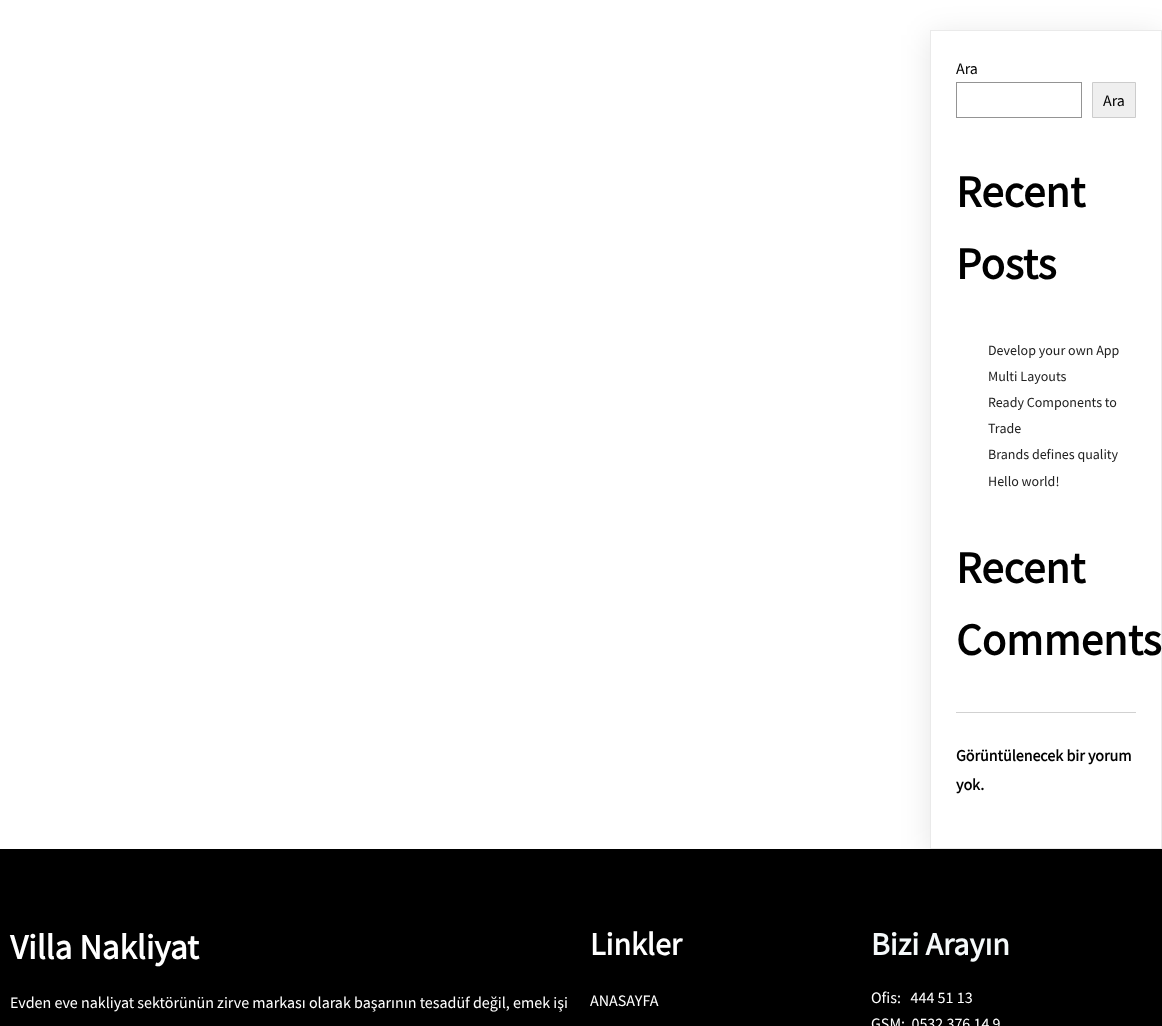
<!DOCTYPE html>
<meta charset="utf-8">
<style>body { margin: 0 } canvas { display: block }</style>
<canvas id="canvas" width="1162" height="1026"></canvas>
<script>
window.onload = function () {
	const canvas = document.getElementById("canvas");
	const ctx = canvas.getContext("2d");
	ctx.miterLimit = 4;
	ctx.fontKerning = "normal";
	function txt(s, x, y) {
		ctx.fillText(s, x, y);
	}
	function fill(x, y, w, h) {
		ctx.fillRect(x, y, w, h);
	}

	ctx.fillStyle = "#FFFFFF";
	fill(0, 0, 1162, 1026);
	ctx.save();
	ctx.beginPath();
	ctx.moveTo(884, 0);
	ctx.lineTo(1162, 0);
	ctx.lineTo(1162, 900);
	ctx.lineTo(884, 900);
	ctx.closePath();
	ctx.moveTo(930, 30);
	ctx.lineTo(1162, 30);
	ctx.lineTo(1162, 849);
	ctx.lineTo(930, 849);
	ctx.closePath();
	ctx.clip("evenodd");
	ctx.fillStyle = "rgba(0, 0, 0, 0.1)";
	ctx.filter = "blur(15px)";
	ctx.beginPath();
	ctx.rect(930, 35, 232, 819);
	ctx.fill();
	ctx.filter = "none";
	ctx.restore();
	ctx.strokeStyle = "#EAEAEA";
	ctx.strokeRect(930.5, 30.5, 231, 818);
	ctx.strokeStyle = "#949494";
	ctx.strokeRect(956.5, 82.5, 125, 35);
	ctx.fillStyle = "#EFEFEF";
	ctx.beginPath();
	ctx.rect(1092.5, 82.5, 43, 35);
	ctx.fill();
	ctx.strokeStyle = "#CCCCCC";
	ctx.stroke();
	ctx.fillStyle = "#D1D1D1";
	fill(956, 712, 180, 1);
	ctx.fillStyle = "#000000";
	fill(0, 849, 1162, 177);
	ctx.font = "16px Source Sans Pro";
	txt("Ara", 956, 74);
	txt("Ara", 1103, 106);
	ctx.font = "bold 45px Source Sans Pro";
	txt("Recent", 956, 207);
	txt("Posts", 956, 279);
	ctx.font = "14px Source Sans Pro";
	ctx.fillStyle = "#212121";
	txt("Develop your own App", 988, 355);
	txt("Multi Layouts", 988, 381);
	txt("Ready Components to", 988, 407);
	txt("Trade", 988, 433);
	txt("Brands defines quality", 988, 459);
	txt("Hello world!", 988, 486);
	ctx.font = "bold 45px Source Sans Pro";
	ctx.fillStyle = "#000000";
	txt("Recent", 956, 583);
	txt("Comments", 956, 655);
	ctx.font = "bold 16px Source Sans Pro";
	txt("Görüntülenecek bir yorum", 956, 761);
	txt("yok.", 956, 790);
	ctx.font = "bold 35px Source Sans Pro";
	ctx.fillStyle = "#FFFFFF";
	txt("Villa Nakliyat", 10, 959);
	ctx.font = "16px Source Sans Pro";
	txt("Evden eve nakliyat sektörünün zirve markası olarak başarının tesadüf değil, emek işi", 10, 1008);
	ctx.font = "bold 32px Source Sans Pro";
	txt("Linkler", 590, 955);
	ctx.font = "16px Source Sans Pro";
	txt("ANASAYFA", 590, 1006);
	ctx.font = "bold 32px Source Sans Pro";
	ctx.fillStyle = "#F5F9FA";
	txt("Bizi Arayın", 871, 955);
	ctx.font = "16px Source Sans Pro";
	ctx.fillStyle = "#FFFFFF";
	txt("Ofis:   444 51 13", 871, 1003);
	txt("GSM:  0532 376 14 9", 871, 1029);
};
</script>
